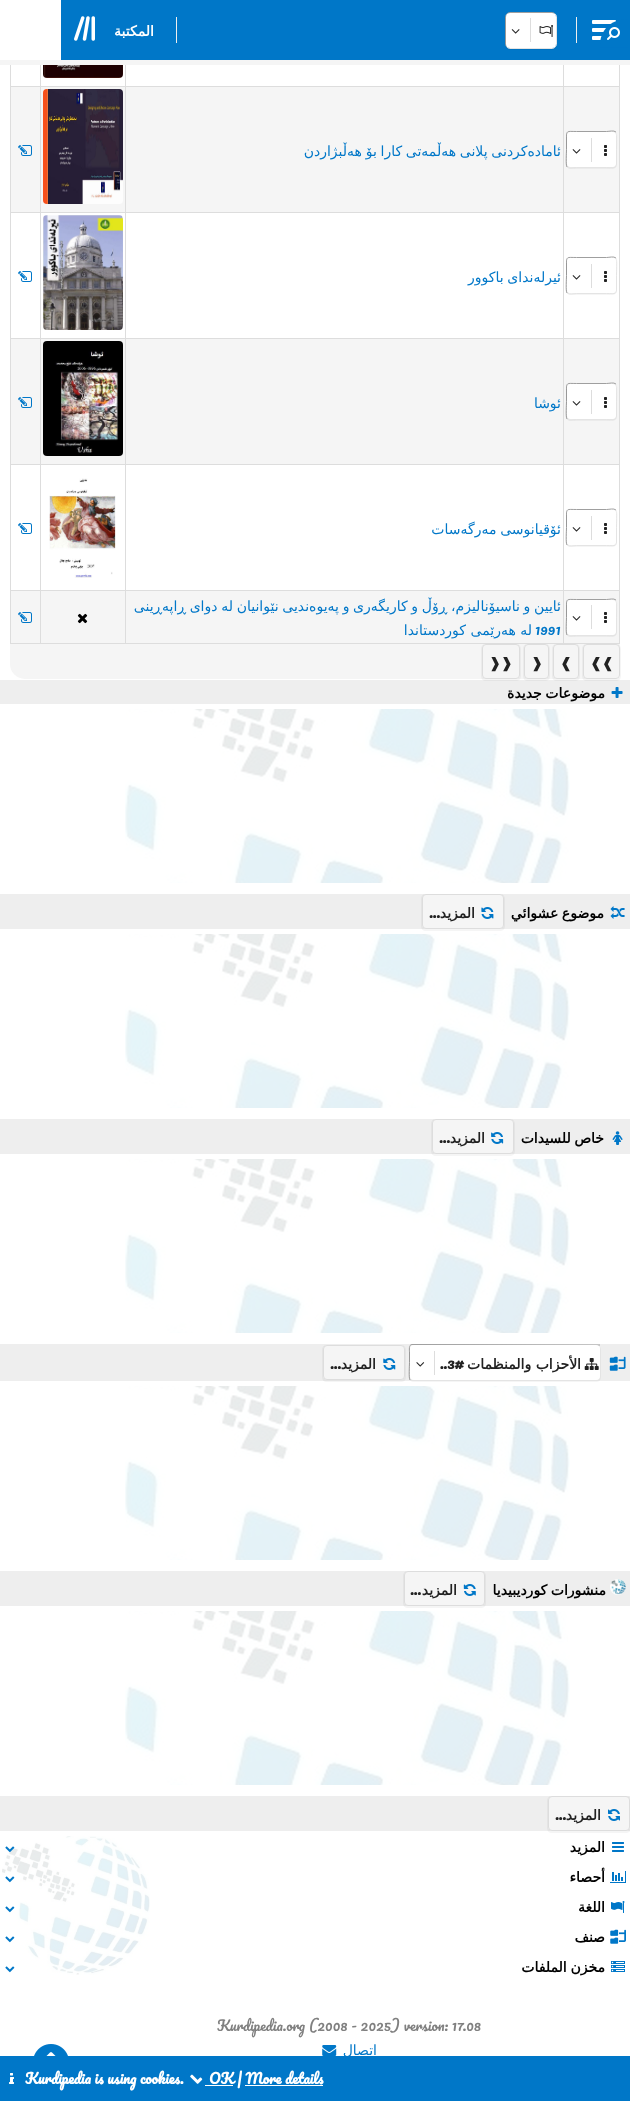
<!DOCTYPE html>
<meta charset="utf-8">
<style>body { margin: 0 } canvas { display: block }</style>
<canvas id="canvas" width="630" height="2101"></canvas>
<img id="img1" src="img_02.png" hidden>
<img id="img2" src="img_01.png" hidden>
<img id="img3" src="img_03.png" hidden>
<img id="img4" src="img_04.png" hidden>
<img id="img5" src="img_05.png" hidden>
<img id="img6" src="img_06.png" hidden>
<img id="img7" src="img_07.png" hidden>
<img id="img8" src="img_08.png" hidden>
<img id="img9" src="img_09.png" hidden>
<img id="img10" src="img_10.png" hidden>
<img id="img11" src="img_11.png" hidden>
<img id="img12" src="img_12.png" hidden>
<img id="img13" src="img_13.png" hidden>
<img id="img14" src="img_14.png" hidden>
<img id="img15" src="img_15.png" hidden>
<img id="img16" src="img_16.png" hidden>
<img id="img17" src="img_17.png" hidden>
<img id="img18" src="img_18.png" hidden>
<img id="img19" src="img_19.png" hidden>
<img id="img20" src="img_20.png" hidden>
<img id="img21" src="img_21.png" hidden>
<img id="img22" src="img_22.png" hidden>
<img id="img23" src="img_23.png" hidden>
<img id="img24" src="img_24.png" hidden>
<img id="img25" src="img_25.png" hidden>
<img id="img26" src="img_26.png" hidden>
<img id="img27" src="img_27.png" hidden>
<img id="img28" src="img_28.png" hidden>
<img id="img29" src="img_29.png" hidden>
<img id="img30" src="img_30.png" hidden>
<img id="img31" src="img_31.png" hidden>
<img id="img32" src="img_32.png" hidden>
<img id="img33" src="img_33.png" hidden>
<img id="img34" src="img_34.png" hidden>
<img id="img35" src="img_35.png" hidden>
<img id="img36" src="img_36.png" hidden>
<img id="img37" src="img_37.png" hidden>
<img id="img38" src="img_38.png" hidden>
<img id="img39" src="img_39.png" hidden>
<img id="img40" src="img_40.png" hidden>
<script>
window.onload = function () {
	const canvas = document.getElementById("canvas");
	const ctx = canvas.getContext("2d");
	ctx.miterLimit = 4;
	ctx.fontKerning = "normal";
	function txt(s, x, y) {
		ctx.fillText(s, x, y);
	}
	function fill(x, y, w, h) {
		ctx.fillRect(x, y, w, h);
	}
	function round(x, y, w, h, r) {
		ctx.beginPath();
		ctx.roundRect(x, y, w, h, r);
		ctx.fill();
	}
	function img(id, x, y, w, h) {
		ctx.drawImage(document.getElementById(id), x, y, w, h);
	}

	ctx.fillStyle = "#FFFFFF";
	fill(0, 0, 630, 2101);
	ctx.fillStyle = "#F5F5F5";
	round(10, -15, 610, 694, 15);
	ctx.fillStyle = "#0077C8";
	fill(61, 0, 569, 60);
	img("img1", 592, 20, 24, 20);
	ctx.beginPath();
	ctx.moveTo(628, 19.5);
	ctx.lineTo(625, 19.5);
	ctx.bezierCurveTo(611, 19.5, 600, 30.5, 600, 44.5);
	ctx.lineTo(600, 47.5);
	ctx.lineTo(628, 47.5);
	ctx.closePath();
	ctx.fill();
	img("img2", 607, 27, 13, 13);
	ctx.fillStyle = "#EEEEEE";
	fill(576, 17, 1, 26);
	ctx.beginPath();
	ctx.moveTo(555, 14);
	ctx.bezierCurveTo(556, 14.5, 556.5, 16, 556.5, 17);
	ctx.lineTo(556.5, 44);
	ctx.bezierCurveTo(556.5, 45, 556, 46.5, 555, 47);
	ctx.bezierCurveTo(554.5, 48, 553, 48.5, 552, 48.5);
	ctx.lineTo(510, 48.5);
	ctx.bezierCurveTo(509, 48.5, 507.5, 48, 507, 47);
	ctx.strokeStyle = "#EEEEEE";
	ctx.stroke();
	ctx.beginPath();
	ctx.moveTo(507, 47);
	ctx.bezierCurveTo(506, 46.5, 505.5, 45, 505.5, 44);
	ctx.lineTo(505.5, 17);
	ctx.bezierCurveTo(505.5, 16, 506, 14.5, 507, 14);
	ctx.bezierCurveTo(507.5, 13, 509, 12.5, 510, 12.5);
	ctx.lineTo(552, 12.5);
	ctx.bezierCurveTo(553, 12.5, 554.5, 13, 555, 14);
	ctx.strokeStyle = "#9F9F9F";
	ctx.stroke();
	ctx.fillStyle = "rgba(0, 0, 0, 0.04)";
	ctx.beginPath();
	ctx.moveTo(510, 13);
	ctx.bezierCurveTo(507, 13, 505, 15, 505, 18);
	ctx.lineTo(505, 45);
	ctx.bezierCurveTo(505, 48, 507, 50, 510, 50);
	ctx.lineTo(552, 50);
	ctx.bezierCurveTo(555, 50, 557, 48, 557, 45);
	ctx.lineTo(557, 18);
	ctx.bezierCurveTo(557, 15, 555, 13, 552, 13);
	ctx.bezierCurveTo(554, 13, 556, 15, 556, 17);
	ctx.lineTo(556, 44);
	ctx.bezierCurveTo(556, 46, 554, 48, 552, 48);
	ctx.lineTo(510, 48);
	ctx.bezierCurveTo(508, 48, 506, 46, 506, 44);
	ctx.lineTo(506, 17);
	ctx.bezierCurveTo(506, 15, 508, 13, 510, 13);
	ctx.closePath();
	ctx.fill();
	ctx.fillStyle = "#FFFFFF";
	round(506, 13, 50, 35, 4);
	img("img3", 539, 25, 14, 12);
	ctx.fillStyle = "#DDDDDD";
	fill(530, 18, 1, 24);
	img("img4", 511, 29, 9, 5);
	ctx.fillStyle = "#EEEEEE";
	fill(176, 17, 1, 26);
	img("img5", 74, 16, 21, 25);
	ctx.fillStyle = "#FFFFFF";
	fill(10, 0, 51, 60);
	ctx.fillStyle = "#F5F5F5";
	fill(0, 60, 630, 5);
	ctx.fillStyle = "#FFFFFF";
	fill(11, 65, 608, 21);
	ctx.fillStyle = "#DDDDDD";
	fill(10, 86, 31, 1);
	fill(10, 212, 31, 1);
	ctx.fillStyle = "#FFFFFF";
	fill(11, 213, 608, 125);
	ctx.fillStyle = "#DDDDDD";
	fill(10, 338, 31, 1);
	fill(10, 464, 31, 1);
	ctx.fillStyle = "#FFFFFF";
	fill(11, 465, 608, 125);
	ctx.fillStyle = "#DDDDDD";
	fill(10, 590, 31, 1);
	fill(40, 590, 1, 54);
	fill(40, 590, 86, 1);
	fill(40, 464, 1, 127);
	fill(40, 464, 86, 1);
	fill(40, 338, 1, 127);
	fill(40, 338, 86, 1);
	fill(40, 212, 1, 127);
	fill(40, 212, 86, 1);
	fill(40, 86, 1, 127);
	fill(40, 86, 86, 1);
	fill(125, 590, 1, 54);
	fill(125, 590, 439, 1);
	fill(125, 464, 1, 127);
	fill(125, 464, 439, 1);
	fill(125, 338, 1, 127);
	fill(125, 338, 439, 1);
	fill(125, 212, 1, 127);
	fill(125, 212, 439, 1);
	fill(125, 86, 1, 127);
	fill(125, 86, 439, 1);
	fill(563, 590, 1, 54);
	fill(563, 590, 57, 1);
	fill(563, 464, 1, 127);
	fill(563, 464, 57, 1);
	fill(563, 338, 1, 127);
	fill(563, 338, 57, 1);
	fill(563, 212, 1, 127);
	fill(563, 212, 57, 1);
	fill(563, 86, 1, 127);
	fill(563, 86, 57, 1);
	fill(563, 65, 1, 22);
	fill(125, 65, 1, 22);
	img("img6", 43, 65, 80, 13);
	fill(40, 65, 1, 22);
	fill(619, 590, 1, 54);
	fill(619, 464, 1, 127);
	fill(619, 338, 1, 127);
	fill(619, 212, 1, 127);
	fill(619, 65, 1, 148);
	ctx.beginPath();
	ctx.moveTo(616, 132);
	ctx.bezierCurveTo(617.5, 134, 616.5, 146.5, 616.5, 149.5);
	ctx.lineTo(616.5, 160);
	ctx.bezierCurveTo(616.5, 169, 616.5, 167.5, 606.5, 167.5);
	ctx.lineTo(576.5, 167.5);
	ctx.bezierCurveTo(573.5, 167.5, 569.5, 169, 567, 167);
	ctx.strokeStyle = "#EEEEEE";
	ctx.stroke();
	ctx.beginPath();
	ctx.moveTo(567, 167);
	ctx.bezierCurveTo(565.5, 165, 566.5, 152.5, 566.5, 149.5);
	ctx.lineTo(566.5, 139);
	ctx.bezierCurveTo(566.5, 130, 566.5, 131.5, 576.5, 131.5);
	ctx.lineTo(606.5, 131.5);
	ctx.bezierCurveTo(609.5, 131.5, 613.5, 130, 616, 132);
	ctx.strokeStyle = "#9F9F9F";
	ctx.stroke();
	ctx.fillStyle = "rgba(0, 0, 0, 0.04)";
	ctx.beginPath();
	ctx.moveTo(571, 132);
	ctx.bezierCurveTo(568, 132, 566, 134, 566, 137);
	ctx.lineTo(566, 164);
	ctx.bezierCurveTo(566, 167, 568, 169, 571, 169);
	ctx.lineTo(612, 169);
	ctx.bezierCurveTo(615, 169, 617, 167, 617, 164);
	ctx.lineTo(617, 137);
	ctx.bezierCurveTo(617, 134, 615, 132, 612, 132);
	ctx.bezierCurveTo(614, 132, 616, 134, 616, 136);
	ctx.lineTo(616, 163);
	ctx.bezierCurveTo(616, 165, 614, 167, 612, 167);
	ctx.lineTo(571, 167);
	ctx.bezierCurveTo(569, 167, 567, 165, 567, 163);
	ctx.lineTo(567, 136);
	ctx.bezierCurveTo(567, 134, 569, 132, 571, 132);
	ctx.closePath();
	ctx.fill();
	ctx.fillStyle = "#FFFFFF";
	round(567, 132, 49, 35, 4);
	img("img7", 604, 145, 3, 11);
	ctx.fillStyle = "#DDDDDD";
	fill(591, 138, 1, 24);
	img("img8", 572, 149, 9, 5);
	img("img9", 43, 89, 80, 115);
	fill(10, 643, 31, 1);
	fill(10, 590, 1, 54);
	fill(10, 464, 1, 127);
	fill(10, 338, 1, 127);
	fill(10, 212, 1, 127);
	fill(10, 65, 1, 148);
	img("img10", 18, 145, 14, 11);
	ctx.beginPath();
	ctx.moveTo(616, 258);
	ctx.bezierCurveTo(617.5, 260, 616.5, 272.5, 616.5, 275.5);
	ctx.lineTo(616.5, 286);
	ctx.bezierCurveTo(616.5, 295, 616.5, 293.5, 606.5, 293.5);
	ctx.lineTo(576.5, 293.5);
	ctx.bezierCurveTo(573.5, 293.5, 569.5, 295, 567, 293);
	ctx.strokeStyle = "#EEEEEE";
	ctx.stroke();
	ctx.beginPath();
	ctx.moveTo(567, 293);
	ctx.bezierCurveTo(565.5, 291, 566.5, 278.5, 566.5, 275.5);
	ctx.lineTo(566.5, 265);
	ctx.bezierCurveTo(566.5, 256, 566.5, 257.5, 576.5, 257.5);
	ctx.lineTo(606.5, 257.5);
	ctx.bezierCurveTo(609.5, 257.5, 613.5, 256, 616, 258);
	ctx.strokeStyle = "#9F9F9F";
	ctx.stroke();
	ctx.fillStyle = "rgba(0, 0, 0, 0.04)";
	ctx.beginPath();
	ctx.moveTo(571, 258);
	ctx.bezierCurveTo(568, 258, 566, 260, 566, 263);
	ctx.lineTo(566, 290);
	ctx.bezierCurveTo(566, 293, 568, 295, 571, 295);
	ctx.lineTo(612, 295);
	ctx.bezierCurveTo(615, 295, 617, 293, 617, 290);
	ctx.lineTo(617, 263);
	ctx.bezierCurveTo(617, 260, 615, 258, 612, 258);
	ctx.bezierCurveTo(614, 258, 616, 260, 616, 262);
	ctx.lineTo(616, 289);
	ctx.bezierCurveTo(616, 291, 614, 293, 612, 293);
	ctx.lineTo(571, 293);
	ctx.bezierCurveTo(569, 293, 567, 291, 567, 289);
	ctx.lineTo(567, 262);
	ctx.bezierCurveTo(567, 260, 569, 258, 571, 258);
	ctx.closePath();
	ctx.fill();
	ctx.fillStyle = "#FFFFFF";
	round(567, 258, 49, 35, 4);
	img("img7", 604, 271, 3, 11);
	ctx.fillStyle = "#DDDDDD";
	fill(591, 264, 1, 24);
	img("img8", 572, 275, 9, 5);
	img("img11", 43, 215, 80, 115);
	img("img12", 18, 271, 14, 11);
	ctx.beginPath();
	ctx.moveTo(616, 384);
	ctx.bezierCurveTo(617.5, 386, 616.5, 398.5, 616.5, 401.5);
	ctx.lineTo(616.5, 412);
	ctx.bezierCurveTo(616.5, 421, 616.5, 419.5, 606.5, 419.5);
	ctx.lineTo(576.5, 419.5);
	ctx.bezierCurveTo(573.5, 419.5, 569.5, 421, 567, 419);
	ctx.strokeStyle = "#EEEEEE";
	ctx.stroke();
	ctx.beginPath();
	ctx.moveTo(567, 419);
	ctx.bezierCurveTo(565.5, 417, 566.5, 404.5, 566.5, 401.5);
	ctx.lineTo(566.5, 391);
	ctx.bezierCurveTo(566.5, 382, 566.5, 383.5, 576.5, 383.5);
	ctx.lineTo(606.5, 383.5);
	ctx.bezierCurveTo(609.5, 383.5, 613.5, 382, 616, 384);
	ctx.strokeStyle = "#9F9F9F";
	ctx.stroke();
	ctx.fillStyle = "rgba(0, 0, 0, 0.04)";
	ctx.beginPath();
	ctx.moveTo(571, 384);
	ctx.bezierCurveTo(568, 384, 566, 386, 566, 389);
	ctx.lineTo(566, 416);
	ctx.bezierCurveTo(566, 419, 568, 421, 571, 421);
	ctx.lineTo(612, 421);
	ctx.bezierCurveTo(615, 421, 617, 419, 617, 416);
	ctx.lineTo(617, 389);
	ctx.bezierCurveTo(617, 386, 615, 384, 612, 384);
	ctx.bezierCurveTo(614, 384, 616, 386, 616, 388);
	ctx.lineTo(616, 415);
	ctx.bezierCurveTo(616, 417, 614, 419, 612, 419);
	ctx.lineTo(571, 419);
	ctx.bezierCurveTo(569, 419, 567, 417, 567, 415);
	ctx.lineTo(567, 388);
	ctx.bezierCurveTo(567, 386, 569, 384, 571, 384);
	ctx.closePath();
	ctx.fill();
	ctx.fillStyle = "#FFFFFF";
	round(567, 384, 49, 35, 4);
	img("img7", 604, 397, 3, 11);
	ctx.fillStyle = "#DDDDDD";
	fill(591, 390, 1, 24);
	img("img8", 572, 401, 9, 5);
	img("img13", 43, 341, 80, 115);
	img("img10", 18, 397, 14, 11);
	ctx.beginPath();
	ctx.moveTo(616, 510);
	ctx.bezierCurveTo(617.5, 512, 616.5, 524.5, 616.5, 527.5);
	ctx.lineTo(616.5, 538);
	ctx.bezierCurveTo(616.5, 547, 616.5, 545.5, 606.5, 545.5);
	ctx.lineTo(576.5, 545.5);
	ctx.bezierCurveTo(573.5, 545.5, 569.5, 547, 567, 545);
	ctx.strokeStyle = "#EEEEEE";
	ctx.stroke();
	ctx.beginPath();
	ctx.moveTo(567, 545);
	ctx.bezierCurveTo(565.5, 543, 566.5, 530.5, 566.5, 527.5);
	ctx.lineTo(566.5, 517);
	ctx.bezierCurveTo(566.5, 508, 566.5, 509.5, 576.5, 509.5);
	ctx.lineTo(606.5, 509.5);
	ctx.bezierCurveTo(609.5, 509.5, 613.5, 508, 616, 510);
	ctx.strokeStyle = "#9F9F9F";
	ctx.stroke();
	ctx.fillStyle = "rgba(0, 0, 0, 0.04)";
	ctx.beginPath();
	ctx.moveTo(571, 510);
	ctx.bezierCurveTo(568, 510, 566, 512, 566, 515);
	ctx.lineTo(566, 542);
	ctx.bezierCurveTo(566, 545, 568, 547, 571, 547);
	ctx.lineTo(612, 547);
	ctx.bezierCurveTo(615, 547, 617, 545, 617, 542);
	ctx.lineTo(617, 515);
	ctx.bezierCurveTo(617, 512, 615, 510, 612, 510);
	ctx.bezierCurveTo(614, 510, 616, 512, 616, 514);
	ctx.lineTo(616, 541);
	ctx.bezierCurveTo(616, 543, 614, 545, 612, 545);
	ctx.lineTo(571, 545);
	ctx.bezierCurveTo(569, 545, 567, 543, 567, 541);
	ctx.lineTo(567, 514);
	ctx.bezierCurveTo(567, 512, 569, 510, 571, 510);
	ctx.closePath();
	ctx.fill();
	ctx.fillStyle = "#FFFFFF";
	round(567, 510, 49, 35, 4);
	img("img7", 604, 523, 3, 11);
	ctx.fillStyle = "#DDDDDD";
	fill(591, 516, 1, 24);
	img("img8", 572, 527, 9, 5);
	img("img14", 49, 478, 67, 100);
	img("img12", 18, 523, 14, 11);
	fill(40, 643, 86, 1);
	fill(125, 643, 439, 1);
	fill(563, 643, 57, 1);
	ctx.beginPath();
	ctx.moveTo(616, 600);
	ctx.bezierCurveTo(617.5, 602, 616.5, 614.5, 616.5, 617.5);
	ctx.lineTo(616.5, 628);
	ctx.bezierCurveTo(616.5, 637, 616.5, 635.5, 606.5, 635.5);
	ctx.lineTo(576.5, 635.5);
	ctx.bezierCurveTo(573.5, 635.5, 569.5, 637, 567, 635);
	ctx.strokeStyle = "#EEEEEE";
	ctx.stroke();
	ctx.beginPath();
	ctx.moveTo(567, 635);
	ctx.bezierCurveTo(565.5, 633, 566.5, 620.5, 566.5, 617.5);
	ctx.lineTo(566.5, 607);
	ctx.bezierCurveTo(566.5, 598, 566.5, 599.5, 576.5, 599.5);
	ctx.lineTo(606.5, 599.5);
	ctx.bezierCurveTo(609.5, 599.5, 613.5, 598, 616, 600);
	ctx.strokeStyle = "#9F9F9F";
	ctx.stroke();
	ctx.fillStyle = "rgba(0, 0, 0, 0.04)";
	ctx.beginPath();
	ctx.moveTo(571, 600);
	ctx.bezierCurveTo(568, 600, 566, 602, 566, 605);
	ctx.lineTo(566, 632);
	ctx.bezierCurveTo(566, 635, 568, 637, 571, 637);
	ctx.lineTo(612, 637);
	ctx.bezierCurveTo(615, 637, 617, 635, 617, 632);
	ctx.lineTo(617, 605);
	ctx.bezierCurveTo(617, 602, 615, 600, 612, 600);
	ctx.bezierCurveTo(614, 600, 616, 602, 616, 604);
	ctx.lineTo(616, 631);
	ctx.bezierCurveTo(616, 633, 614, 635, 612, 635);
	ctx.lineTo(571, 635);
	ctx.bezierCurveTo(569, 635, 567, 633, 567, 631);
	ctx.lineTo(567, 604);
	ctx.bezierCurveTo(567, 602, 569, 600, 571, 600);
	ctx.closePath();
	ctx.fill();
	ctx.fillStyle = "#FFFFFF";
	round(567, 600, 49, 35, 4);
	img("img7", 604, 612, 3, 11);
	ctx.fillStyle = "#DDDDDD";
	fill(591, 605, 1, 24);
	img("img8", 572, 616, 9, 5);
	img("img15", 77, 613, 11, 11);
	img("img10", 18, 612, 14, 11);
	ctx.fillStyle = "#EEEEEE";
	fill(0, 680, 630, 24);
	ctx.fillStyle = "rgba(0, 0, 0, 0.04)";
	ctx.beginPath();
	ctx.moveTo(587, 644);
	ctx.bezierCurveTo(584, 644, 582, 646, 582, 649);
	ctx.lineTo(582, 676);
	ctx.bezierCurveTo(582, 679, 584, 681, 587, 681);
	ctx.lineTo(616, 681);
	ctx.bezierCurveTo(619, 681, 621, 679, 621, 676);
	ctx.lineTo(621, 649);
	ctx.bezierCurveTo(621, 646, 619, 644, 616, 644);
	ctx.bezierCurveTo(618, 644, 620, 646, 620, 648);
	ctx.lineTo(620, 675);
	ctx.bezierCurveTo(620, 677, 618, 679, 616, 679);
	ctx.lineTo(587, 679);
	ctx.bezierCurveTo(585, 679, 583, 677, 583, 675);
	ctx.lineTo(583, 648);
	ctx.bezierCurveTo(583, 646, 585, 644, 587, 644);
	ctx.closePath();
	ctx.fill();
	ctx.fillStyle = "#F5F5F5";
	ctx.beginPath();
	ctx.roundRect(583.5, 644.5, 36, 34, 3.5);
	ctx.fill();
	ctx.strokeStyle = "#DDDDDD";
	ctx.stroke();
	ctx.fillStyle = "rgba(0, 0, 0, 0.04)";
	ctx.beginPath();
	ctx.moveTo(557, 644);
	ctx.bezierCurveTo(554, 644, 552, 646, 552, 649);
	ctx.lineTo(552, 676);
	ctx.bezierCurveTo(552, 679, 554, 681, 557, 681);
	ctx.lineTo(575, 681);
	ctx.bezierCurveTo(578, 681, 580, 679, 580, 676);
	ctx.lineTo(580, 649);
	ctx.bezierCurveTo(580, 646, 578, 644, 575, 644);
	ctx.bezierCurveTo(577, 644, 579, 646, 579, 648);
	ctx.lineTo(579, 675);
	ctx.bezierCurveTo(579, 677, 577, 679, 575, 679);
	ctx.lineTo(557, 679);
	ctx.bezierCurveTo(555, 679, 553, 677, 553, 675);
	ctx.lineTo(553, 648);
	ctx.bezierCurveTo(553, 646, 555, 644, 557, 644);
	ctx.closePath();
	ctx.fill();
	ctx.fillStyle = "#F5F5F5";
	ctx.beginPath();
	ctx.roundRect(553.5, 644.5, 25, 34, 3.5);
	ctx.fill();
	ctx.stroke();
	ctx.fillStyle = "rgba(0, 0, 0, 0.04)";
	ctx.beginPath();
	ctx.moveTo(528, 644);
	ctx.bezierCurveTo(525, 644, 523, 646, 523, 649);
	ctx.lineTo(523, 676);
	ctx.bezierCurveTo(523, 679, 525, 681, 528, 681);
	ctx.lineTo(545, 681);
	ctx.bezierCurveTo(548, 681, 550, 679, 550, 676);
	ctx.lineTo(550, 649);
	ctx.bezierCurveTo(550, 646, 548, 644, 545, 644);
	ctx.bezierCurveTo(547, 644, 549, 646, 549, 648);
	ctx.lineTo(549, 675);
	ctx.bezierCurveTo(549, 677, 547, 679, 545, 679);
	ctx.lineTo(528, 679);
	ctx.bezierCurveTo(526, 679, 524, 677, 524, 675);
	ctx.lineTo(524, 648);
	ctx.bezierCurveTo(524, 646, 526, 644, 528, 644);
	ctx.closePath();
	ctx.fill();
	ctx.fillStyle = "#F5F5F5";
	ctx.beginPath();
	ctx.roundRect(524.5, 644.5, 24, 34, 3.5);
	ctx.fill();
	ctx.stroke();
	ctx.fillStyle = "rgba(0, 0, 0, 0.04)";
	ctx.beginPath();
	ctx.moveTo(486, 644);
	ctx.bezierCurveTo(483, 644, 481, 646, 481, 649);
	ctx.lineTo(481, 676);
	ctx.bezierCurveTo(481, 679, 483, 681, 486, 681);
	ctx.lineTo(516, 681);
	ctx.bezierCurveTo(519, 681, 521, 679, 521, 676);
	ctx.lineTo(521, 649);
	ctx.bezierCurveTo(521, 646, 519, 644, 516, 644);
	ctx.bezierCurveTo(518, 644, 520, 646, 520, 648);
	ctx.lineTo(520, 675);
	ctx.bezierCurveTo(520, 677, 518, 679, 516, 679);
	ctx.lineTo(486, 679);
	ctx.bezierCurveTo(484, 679, 482, 677, 482, 675);
	ctx.lineTo(482, 648);
	ctx.bezierCurveTo(482, 646, 484, 644, 486, 644);
	ctx.closePath();
	ctx.fill();
	ctx.fillStyle = "#F5F5F5";
	ctx.beginPath();
	ctx.roundRect(482.5, 644.5, 37, 34, 3.5);
	ctx.fill();
	ctx.stroke();
	img("img16", 611, 687, 12, 11);
	img("img17", 125, 709, 445, 174);
	ctx.fillStyle = "#EEEEEE";
	fill(0, 894, 630, 35);
	img("img18", 610, 906, 15, 13);
	ctx.fillStyle = "rgba(0, 0, 0, 0.04)";
	ctx.beginPath();
	ctx.moveTo(426, 894);
	ctx.bezierCurveTo(423, 894, 421, 896, 421, 899);
	ctx.lineTo(421, 926);
	ctx.bezierCurveTo(421, 929, 423, 931, 426, 931);
	ctx.lineTo(500, 931);
	ctx.bezierCurveTo(503, 931, 505, 929, 505, 926);
	ctx.lineTo(505, 899);
	ctx.bezierCurveTo(505, 896, 503, 894, 500, 894);
	ctx.bezierCurveTo(502, 894, 504, 896, 504, 898);
	ctx.lineTo(504, 925);
	ctx.bezierCurveTo(504, 927, 502, 929, 500, 929);
	ctx.lineTo(426, 929);
	ctx.bezierCurveTo(424, 929, 422, 927, 422, 925);
	ctx.lineTo(422, 898);
	ctx.bezierCurveTo(422, 896, 424, 894, 426, 894);
	ctx.closePath();
	ctx.fill();
	ctx.fillStyle = "#F5F5F5";
	ctx.beginPath();
	ctx.roundRect(422.5, 894.5, 81, 34, 3.5);
	ctx.fill();
	ctx.stroke();
	img("img19", 481, 907, 13, 12);
	img("img17", 125, 934, 445, 174);
	ctx.fillStyle = "#EEEEEE";
	fill(0, 1119, 630, 35);
	img("img20", 612, 1131, 11, 14);
	ctx.fillStyle = "rgba(0, 0, 0, 0.04)";
	ctx.beginPath();
	ctx.moveTo(436, 1119);
	ctx.bezierCurveTo(433, 1119, 431, 1121, 431, 1124);
	ctx.lineTo(431, 1151);
	ctx.bezierCurveTo(431, 1154, 433, 1156, 436, 1156);
	ctx.lineTo(510, 1156);
	ctx.bezierCurveTo(513, 1156, 515, 1154, 515, 1151);
	ctx.lineTo(515, 1124);
	ctx.bezierCurveTo(515, 1121, 513, 1119, 510, 1119);
	ctx.bezierCurveTo(512, 1119, 514, 1121, 514, 1123);
	ctx.lineTo(514, 1150);
	ctx.bezierCurveTo(514, 1152, 512, 1154, 510, 1154);
	ctx.lineTo(436, 1154);
	ctx.bezierCurveTo(434, 1154, 432, 1152, 432, 1150);
	ctx.lineTo(432, 1123);
	ctx.bezierCurveTo(432, 1121, 434, 1119, 436, 1119);
	ctx.closePath();
	ctx.fill();
	ctx.fillStyle = "#F5F5F5";
	ctx.beginPath();
	ctx.roundRect(432.5, 1119.5, 81, 34, 3.5);
	ctx.fill();
	ctx.stroke();
	img("img21", 491, 1132, 13, 12);
	img("img17", 125, 1159, 445, 174);
	ctx.fillStyle = "#EEEEEE";
	fill(0, 1344, 630, 37);
	img("img22", 609, 1356, 17, 15);
	ctx.beginPath();
	ctx.moveTo(410, 1380);
	ctx.bezierCurveTo(408.5, 1378, 409.5, 1365.5, 409.5, 1362.5);
	ctx.lineTo(409.5, 1352);
	ctx.bezierCurveTo(409.5, 1350.5, 408.5, 1344.5, 412, 1344.5);
	ctx.lineTo(599, 1345);
	ctx.lineTo(600, 1345);
	ctx.strokeStyle = "#9F9F9F";
	ctx.stroke();
	ctx.fillStyle = "rgba(0, 0, 0, 0.04)";
	ctx.beginPath();
	ctx.moveTo(414, 1345);
	ctx.bezierCurveTo(411, 1345, 409, 1347, 409, 1350);
	ctx.lineTo(409, 1377);
	ctx.bezierCurveTo(409, 1380, 411, 1382, 414, 1382);
	ctx.lineTo(596, 1382);
	ctx.bezierCurveTo(599, 1382, 601, 1380, 601, 1377);
	ctx.lineTo(601, 1350);
	ctx.bezierCurveTo(601, 1347, 599, 1345, 596, 1345);
	ctx.bezierCurveTo(598, 1345, 600, 1347, 600, 1349);
	ctx.lineTo(600, 1376);
	ctx.bezierCurveTo(600, 1378, 598, 1380, 596, 1380);
	ctx.lineTo(414, 1380);
	ctx.bezierCurveTo(412, 1380, 410, 1378, 410, 1376);
	ctx.lineTo(410, 1349);
	ctx.bezierCurveTo(410, 1347, 412, 1345, 414, 1345);
	ctx.closePath();
	ctx.fill();
	ctx.fillStyle = "#FFFFFF";
	round(410, 1345, 190, 35, 4);
	img("img23", 584, 1358, 15, 12);
	ctx.fillStyle = "#DDDDDD";
	fill(434, 1351, 1, 24);
	img("img24", 416, 1362, 9, 5);
	ctx.fillStyle = "rgba(0, 0, 0, 0.04)";
	ctx.beginPath();
	ctx.moveTo(327, 1345);
	ctx.bezierCurveTo(324, 1345, 322, 1347, 322, 1350);
	ctx.lineTo(322, 1377);
	ctx.bezierCurveTo(322, 1380, 324, 1382, 327, 1382);
	ctx.lineTo(401, 1382);
	ctx.bezierCurveTo(404, 1382, 406, 1380, 406, 1377);
	ctx.lineTo(406, 1350);
	ctx.bezierCurveTo(406, 1347, 404, 1345, 401, 1345);
	ctx.bezierCurveTo(403, 1345, 405, 1347, 405, 1349);
	ctx.lineTo(405, 1376);
	ctx.bezierCurveTo(405, 1378, 403, 1380, 401, 1380);
	ctx.lineTo(327, 1380);
	ctx.bezierCurveTo(325, 1380, 323, 1378, 323, 1376);
	ctx.lineTo(323, 1349);
	ctx.bezierCurveTo(323, 1347, 325, 1345, 327, 1345);
	ctx.closePath();
	ctx.fill();
	ctx.fillStyle = "#F5F5F5";
	ctx.beginPath();
	ctx.roundRect(323.5, 1345.5, 81, 34, 3.5);
	ctx.fill();
	ctx.strokeStyle = "#DDDDDD";
	ctx.stroke();
	img("img25", 383, 1358, 13, 12);
	img("img17", 125, 1386, 445, 174);
	ctx.fillStyle = "#EEEEEE";
	fill(0, 1571, 630, 35);
	img("img26", 610, 1579, 16, 16);
	ctx.fillStyle = "rgba(0, 0, 0, 0.04)";
	ctx.beginPath();
	ctx.moveTo(408, 1571);
	ctx.bezierCurveTo(405, 1571, 403, 1573, 403, 1576);
	ctx.lineTo(403, 1603);
	ctx.bezierCurveTo(403, 1606, 405, 1608, 408, 1608);
	ctx.lineTo(481, 1608);
	ctx.bezierCurveTo(484, 1608, 486, 1606, 486, 1603);
	ctx.lineTo(486, 1576);
	ctx.bezierCurveTo(486, 1573, 484, 1571, 481, 1571);
	ctx.bezierCurveTo(483, 1571, 485, 1573, 485, 1575);
	ctx.lineTo(485, 1602);
	ctx.bezierCurveTo(485, 1604, 483, 1606, 481, 1606);
	ctx.lineTo(408, 1606);
	ctx.bezierCurveTo(406, 1606, 404, 1604, 404, 1602);
	ctx.lineTo(404, 1575);
	ctx.bezierCurveTo(404, 1573, 406, 1571, 408, 1571);
	ctx.closePath();
	ctx.fill();
	ctx.fillStyle = "#F5F5F5";
	ctx.beginPath();
	ctx.roundRect(404.5, 1571.5, 80, 34, 3.5);
	ctx.fill();
	ctx.stroke();
	img("img27", 463, 1584, 13, 12);
	img("img17", 125, 1611, 445, 174);
	ctx.fillStyle = "#EEEEEE";
	fill(0, 1796, 630, 35);
	ctx.fillStyle = "rgba(0, 0, 0, 0.04)";
	ctx.beginPath();
	ctx.moveTo(552, 1796);
	ctx.bezierCurveTo(549, 1796, 547, 1798, 547, 1801);
	ctx.lineTo(547, 1828);
	ctx.bezierCurveTo(547, 1831, 549, 1833, 552, 1833);
	ctx.lineTo(626, 1833);
	ctx.bezierCurveTo(629, 1833, 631, 1831, 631, 1828);
	ctx.lineTo(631, 1801);
	ctx.bezierCurveTo(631, 1798, 629, 1796, 626, 1796);
	ctx.bezierCurveTo(628, 1796, 630, 1798, 630, 1800);
	ctx.lineTo(630, 1827);
	ctx.bezierCurveTo(630, 1829, 628, 1831, 626, 1831);
	ctx.lineTo(552, 1831);
	ctx.bezierCurveTo(550, 1831, 548, 1829, 548, 1827);
	ctx.lineTo(548, 1800);
	ctx.bezierCurveTo(548, 1798, 550, 1796, 552, 1796);
	ctx.closePath();
	ctx.fill();
	ctx.fillStyle = "#F5F5F5";
	ctx.beginPath();
	ctx.roundRect(548.5, 1796.5, 81, 34, 3.5);
	ctx.fill();
	ctx.stroke();
	img("img28", 608, 1809, 12, 12);
	img("img29", 2, 1836, 148, 139);
	img("img30", 612, 1842, 12, 10);
	img("img31", 5, 1846, 10, 7);
	img("img32", 610, 1871, 16, 12);
	img("img33", 5, 1876, 10, 7);
	img("img34", 611, 1901, 14, 12);
	img("img33", 5, 1906, 10, 7);
	img("img35", 610, 1929, 16, 15);
	img("img33", 5, 1936, 10, 7);
	img("img36", 611, 1961, 14, 11);
	img("img33", 5, 1966, 10, 7);
	img("img37", 322, 2045, 15, 11);
	img("img38", 34, 2044, 34, 12);
	ctx.fillStyle = "#0077C8";
	fill(0, 2056, 630, 45);
	ctx.fillStyle = "#FFFFFF";
	fill(205, 2085, 28, 1);
	img("img39", 190, 2074, 13, 10);
	img("img40", 9, 2073, 5, 11);
	fill(245, 2085, 78, 1);
	ctx.direction = "rtl";
	ctx.font = "bold 14px DejaVu Sans";
	txt("المکتبة", 154, 36);
	ctx.wordSpacing = "-0.75px";
	ctx.font = "14px DejaVu Sans";
	ctx.fillStyle = "#0077C8";
	txt("ئامادەکردنی پلانی هەڵمەتی کارا بۆ هەڵبژاردن", 561, 156);
	txt("ئیرلەندای باکوور", 561, 282);
	ctx.wordSpacing = "0px";
	txt("ئوشا", 561, 408);
	ctx.wordSpacing = "-0.75px";
	txt("ئۆقیانوسی مەرگەسات", 561, 534);
	txt("ئایین و ناسیۆنالیزم، ڕۆڵ و کاریگەری و پەیوەندیی نێوانیان لە دوای ڕاپەڕینی", 561, 611);
	ctx.wordSpacing = "0px";
	ctx.direction = "ltr";
	ctx.font = "14px Pacifico";
	txt("1991", 535, 635);
	ctx.direction = "rtl";
	ctx.font = "14px DejaVu Sans";
	txt("لە هەرێمی کوردستاندا", 532, 635);
	ctx.direction = "ltr";
	ctx.font = "bold 14px DejaVu Sans";
	ctx.fillStyle = "#222222";
	txt("❰❰", 590, 668);
	txt("❰", 560, 668);
	txt("❱", 531, 668);
	txt("❱❱", 489, 668);
	ctx.wordSpacing = "-0.75px";
	ctx.direction = "rtl";
	ctx.fillStyle = "#000000";
	txt("موضوعات جديدة", 605, 698);
	ctx.wordSpacing = "-1px";
	txt("موضوع عشوائي", 604, 918);
	ctx.wordSpacing = "0px";
	ctx.fillStyle = "#222222";
	txt("المزيد", 475, 918);
	ctx.font = "bold 14px Pacifico";
	txt("...", 440, 918);
	ctx.wordSpacing = "-1px";
	ctx.font = "bold 14px DejaVu Sans";
	ctx.fillStyle = "#000000";
	txt("خاص للسيدات", 604, 1143);
	ctx.wordSpacing = "0px";
	ctx.fillStyle = "#222222";
	txt("المزيد", 485, 1143);
	ctx.font = "bold 14px Pacifico";
	txt("...", 450, 1143);
	ctx.font = "bold 14px DejaVu Sans";
	txt("الأحزاب والمنظمات", 581, 1369);
	ctx.font = "bold 14px Pacifico";
	txt("#", 464, 1369);
	ctx.direction = "ltr";
	txt("..3", 440, 1369);
	ctx.direction = "rtl";
	ctx.font = "bold 14px DejaVu Sans";
	txt("المزيد", 376, 1369);
	ctx.font = "bold 14px Pacifico";
	txt("...", 341, 1369);
	ctx.wordSpacing = "-1px";
	ctx.font = "bold 14px DejaVu Sans";
	ctx.fillStyle = "#000000";
	txt("منشورات كورديبيديا", 606, 1595);
	ctx.wordSpacing = "0px";
	ctx.fillStyle = "#222222";
	txt("المزيد", 457, 1595);
	ctx.font = "bold 14px Pacifico";
	txt("...", 421, 1595);
	ctx.font = "bold 14px DejaVu Sans";
	txt("المزيد", 601, 1820);
	ctx.font = "bold 14px Pacifico";
	txt("...", 566, 1820);
	ctx.font = "bold 14px DejaVu Sans";
	ctx.fillStyle = "#000000";
	txt("المزيد", 605, 1852);
	txt("أحصاء", 605, 1882);
	txt("اللغة", 605, 1912);
	txt("صنف", 605, 1942);
	ctx.wordSpacing = "-0.75px";
	txt("مخزن الملفات", 605, 1972);
	ctx.wordSpacing = "0px";
	ctx.direction = "ltr";
	ctx.font = "14px Pacifico";
	ctx.fillStyle = "#808080";
	txt("Kurdipedia.org (2008 - 2025) version: 17.08", 217, 2031);
	ctx.direction = "rtl";
	ctx.font = "14px DejaVu Sans";
	ctx.fillStyle = "#0077C8";
	txt("اتصال", 377, 2055);
	ctx.direction = "ltr";
	ctx.font = "bold 14px Pacifico";
	ctx.fillStyle = "#FFFFFF";
	txt("OK | More details", 209, 2084);
	txt("Kurdipedia is using cookies.", 25, 2084);
};
</script>
